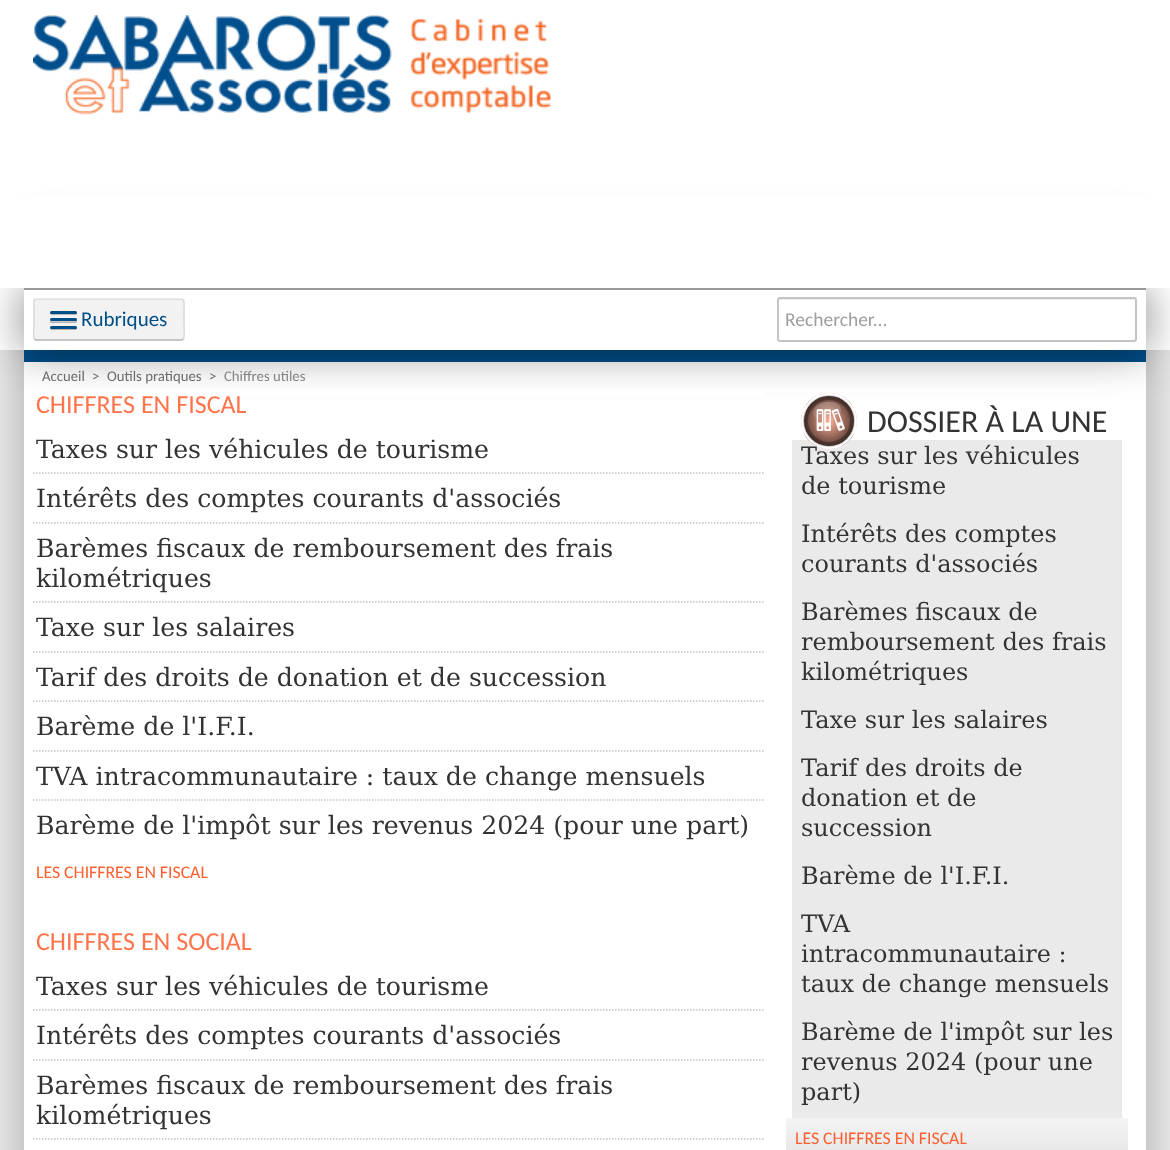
<!DOCTYPE html>
<meta charset="utf-8">
<style>body { margin: 0 } canvas { display: block }</style>
<canvas id="canvas" width="1170" height="1150"></canvas>
<img id="img1" src="img_01.png" hidden>
<img id="img2" src="img_03.png" hidden>
<img id="img3" src="img_02.png" hidden>
<script>
window.onload = function () {
	const canvas = document.getElementById("canvas");
	const ctx = canvas.getContext("2d");
	ctx.miterLimit = 4;
	ctx.fontKerning = "normal";
	function txt(s, x, y) {
		ctx.fillText(s, x, y);
	}
	function fill(x, y, w, h) {
		ctx.fillRect(x, y, w, h);
	}
	function round(x, y, w, h, r) {
		ctx.beginPath();
		ctx.roundRect(x, y, w, h, r);
		ctx.fill();
	}
	function img(id, x, y, w, h) {
		ctx.drawImage(document.getElementById(id), x, y, w, h);
	}
	let gradient;

	ctx.fillStyle = "#FFFFFF";
	fill(0, 0, 1170, 1150);
	ctx.fillStyle = "rgba(0, 0, 0, 0.5)";
	ctx.filter = "blur(45px)";
	ctx.beginPath();
	ctx.rect(33, 288, 1104, 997);
	ctx.fill();
	ctx.filter = "none";
	ctx.fillStyle = "#FFFFFF";
	fill(24, 362, 1122, 788);
	ctx.fillStyle = "#004E88";
	fill(24, 350, 1122, 12);
	ctx.fillStyle = "#FFFFFF";
	fill(0, 288, 1170, 62);
	ctx.save();
	ctx.beginPath();
	ctx.moveTo(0, 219);
	ctx.lineTo(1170, 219);
	ctx.lineTo(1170, 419);
	ctx.lineTo(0, 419);
	ctx.closePath();
	ctx.moveTo(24, 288);
	ctx.lineTo(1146, 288);
	ctx.lineTo(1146, 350);
	ctx.lineTo(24, 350);
	ctx.closePath();
	ctx.clip("evenodd");
	ctx.fillStyle = "rgba(0, 0, 0, 0.5)";
	ctx.filter = "blur(22.5px)";
	ctx.beginPath();
	ctx.rect(24, 288, 1122, 62);
	ctx.fill();
	ctx.filter = "none";
	ctx.restore();
	fill(0, 196, 1170, 92);
	img("img1", 33, 15, 518, 100);
	ctx.fillStyle = "#999999";
	fill(24, 288, 1122, 2);
	ctx.fillStyle = "#F2F2F2";
	round(33, 299, 152, 42, 3);
	ctx.save();
	ctx.beginPath();
	ctx.roundRect(33, 299, 152, 42, 3);
	ctx.clip();
	fill(33, 300, 152, 39);
	ctx.restore();
	ctx.beginPath();
	ctx.moveTo(183, 339);
	ctx.lineTo(181.5, 340);
	ctx.lineTo(36, 340);
	ctx.lineTo(34.5, 339);
	ctx.strokeStyle = "#B6B6B6";
	ctx.lineWidth = 1.5;
	ctx.stroke();
	ctx.beginPath();
	ctx.moveTo(34.5, 339);
	ctx.bezierCurveTo(32.5, 337, 34, 328, 34, 325.5);
	ctx.lineTo(34, 307.5);
	ctx.bezierCurveTo(34, 306.5, 32.5, 299.5, 36, 299);
	ctx.lineTo(181.5, 299);
	ctx.bezierCurveTo(185, 299.5, 184, 306.5, 184, 307.5);
	ctx.lineTo(184, 325.5);
	ctx.bezierCurveTo(184, 328, 185, 337, 183, 339);
	ctx.strokeStyle = "rgba(0, 0, 0, 0.1)";
	ctx.stroke();
	ctx.fillStyle = "#B6B6B6";
	ctx.beginPath();
	ctx.moveTo(50, 313);
	ctx.bezierCurveTo(49.5, 316, 55, 315, 55.5, 315);
	ctx.lineTo(75.5, 315);
	ctx.bezierCurveTo(77, 315, 77.5, 313, 76.5, 312.5);
	ctx.lineTo(75.5, 313.5);
	ctx.bezierCurveTo(74, 314, 50.5, 313.5, 50, 313);
	ctx.closePath();
	ctx.fill();
	ctx.fillStyle = "#004E88";
	round(50, 311, 27, 3, 1.5);
	ctx.fillStyle = "#B6B6B6";
	ctx.beginPath();
	ctx.moveTo(50, 321);
	ctx.bezierCurveTo(48.5, 324, 55.5, 323, 55.5, 323);
	ctx.lineTo(76, 323);
	ctx.bezierCurveTo(77, 322.5, 77.5, 321, 76.5, 320);
	ctx.lineTo(75, 321);
	ctx.bezierCurveTo(73, 321.5, 51, 321.5, 50, 321);
	ctx.closePath();
	ctx.fill();
	ctx.fillStyle = "#004E88";
	round(50, 318, 27, 3, 1.5);
	ctx.fillStyle = "#B6B6B6";
	ctx.beginPath();
	ctx.moveTo(50, 328);
	ctx.bezierCurveTo(49.5, 331, 55, 330, 55.5, 330);
	ctx.lineTo(75.5, 330);
	ctx.bezierCurveTo(77, 330, 77.5, 328, 76.5, 327.5);
	ctx.lineTo(75.5, 328.5);
	ctx.bezierCurveTo(74, 329, 50.5, 328.5, 50, 328);
	ctx.closePath();
	ctx.fill();
	ctx.fillStyle = "#004E88";
	round(50, 326, 27, 3, 1.5);
	ctx.fillStyle = "#ECECEC";
	ctx.beginPath();
	ctx.moveTo(780, 300);
	ctx.lineTo(1135, 300);
	ctx.lineTo(1136, 302);
	ctx.bezierCurveTo(1136, 300, 1136, 299, 1134, 299);
	ctx.lineTo(780, 299);
	ctx.bezierCurveTo(779, 299, 779, 300, 779, 301);
	ctx.closePath();
	ctx.fill();
	ctx.beginPath();
	ctx.roundRect(778, 298, 358, 43, 2);
	ctx.strokeStyle = "#C4C4C4";
	ctx.lineWidth = 2;
	ctx.stroke();
	ctx.fillStyle = "#FFFFFF";
	fill(35, 392, 730, 4);
	ctx.save();
	ctx.beginPath();
	ctx.rect(33, 425, 732, 426);
	ctx.clip();
	ctx.beginPath();
	ctx.moveTo(27, 473);
	ctx.lineTo(771, 473);
	ctx.lineWidth = 1.5;
	ctx.setLineDash([1.5, 1.5]);
	ctx.stroke();
	ctx.beginPath();
	ctx.moveTo(27, 523);
	ctx.lineTo(771, 523);
	ctx.stroke();
	ctx.beginPath();
	ctx.moveTo(27, 602);
	ctx.lineTo(771, 602);
	ctx.stroke();
	ctx.beginPath();
	ctx.moveTo(27, 652);
	ctx.lineTo(771, 652);
	ctx.stroke();
	ctx.beginPath();
	ctx.moveTo(27, 701);
	ctx.lineTo(771, 701);
	ctx.stroke();
	ctx.beginPath();
	ctx.moveTo(27, 751);
	ctx.lineTo(771, 751);
	ctx.stroke();
	ctx.beginPath();
	ctx.moveTo(27, 800);
	ctx.lineTo(771, 800);
	ctx.stroke();
	ctx.restore();
	ctx.save();
	ctx.beginPath();
	ctx.rect(33, 962, 732, 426);
	ctx.clip();
	ctx.beginPath();
	ctx.moveTo(27, 1010);
	ctx.lineTo(771, 1010);
	ctx.lineWidth = 1.5;
	ctx.setLineDash([1.5, 1.5]);
	ctx.stroke();
	ctx.beginPath();
	ctx.moveTo(27, 1060);
	ctx.lineTo(771, 1060);
	ctx.stroke();
	ctx.beginPath();
	ctx.moveTo(27, 1139);
	ctx.lineTo(771, 1139);
	ctx.stroke();
	ctx.restore();
	ctx.fillStyle = "#EAEAEA";
	fill(792, 440, 330, 678);
	gradient = ctx.createLinearGradient(957, 1118, 957, 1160);
	gradient.addColorStop(0, "#F4F4F4");
	gradient.addColorStop(1, "#E5E5E5");
	ctx.fillStyle = gradient;
	fill(786, 1118, 342, 32);
	ctx.font = "21px Carlito";
	ctx.fillStyle = "#004E88";
	txt("Rubriques", 81, 326);
	ctx.font = "19.5px Carlito";
	ctx.fillStyle = "#9E9E9E";
	txt("Rechercher...", 785, 326);
	ctx.font = "14.75px Carlito";
	ctx.fillStyle = "#6B6B6B";
	txt("Accueil", 42, 381);
	txt(">", 92, 381);
	txt("Outils pratiques", 107, 381);
	txt(">", 209, 381);
	ctx.fillStyle = "#848484";
	txt("Chiffres utiles", 224, 381);
	ctx.font = "26px Carlito";
	ctx.fillStyle = "#FF744A";
	txt("CHIFFRES EN FISCAL", 36, 413);
	ctx.font = "25.2px DejaVu Serif";
	ctx.fillStyle = "#333333";
	txt("Taxes sur les véhicules de tourisme", 36, 458);
	txt("Intérêts des comptes courants d'associés", 36, 507);
	txt("Barèmes fiscaux de remboursement des frais", 36, 557);
	txt("kilométriques", 36, 587);
	txt("Taxe sur les salaires", 36, 636);
	txt("Tarif des droits de donation et de succession", 36, 686);
	txt("Barème de l'I.F.I.", 36, 735);
	txt("TVA intracommunautaire : taux de change mensuels", 36, 785);
	txt("Barème de l'impôt sur les revenus 2024 (pour une part)", 36, 834);
	ctx.font = "17.75px Carlito";
	ctx.fillStyle = "#FF6031";
	txt("LES CHIFFRES EN FISCAL", 36, 878);
	ctx.font = "26px Carlito";
	ctx.fillStyle = "#FF744A";
	txt("CHIFFRES EN SOCIAL", 36, 950);
	ctx.font = "25.2px DejaVu Serif";
	ctx.fillStyle = "#333333";
	txt("Taxes sur les véhicules de tourisme", 36, 995);
	txt("Intérêts des comptes courants d'associés", 36, 1044);
	txt("Barèmes fiscaux de remboursement des frais", 36, 1094);
	txt("kilométriques", 36, 1124);
	ctx.font = "32px Carlito";
	txt("DOSSIER À LA UNE", 867, 432);
	ctx.font = "24px DejaVu Serif";
	txt("Taxes sur les véhicules", 801, 464);
	ctx.fillStyle = "#FFAF97";
	ctx.beginPath();
	ctx.arc(829, 421, 28, 0, Math.PI * 2);
	ctx.fill();
	ctx.save();
	ctx.beginPath();
	ctx.roundRect(801, 393, 56, 56, 28);
	ctx.clip();
	gradient = ctx.createRadialGradient(829, 421, 0, 829, 421, 35);
	gradient.addColorStop(0, "rgba(0, 0, 0, 0)");
	gradient.addColorStop(1, "rgba(0, 0, 0, 0.9)");
	ctx.fillStyle = gradient;
	fill(804, 396, 50, 50);
	ctx.restore();
	ctx.beginPath();
	ctx.arc(829, 421, 26.5, 0, Math.PI * 2);
	ctx.strokeStyle = "#FFFFFF";
	ctx.lineWidth = 3;
	ctx.stroke();
	img("img2", 813, 401, 29, 20);
	ctx.save();
	ctx.beginPath();
	ctx.moveTo(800, 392);
	ctx.lineTo(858, 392);
	ctx.lineTo(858, 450);
	ctx.lineTo(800, 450);
	ctx.closePath();
	ctx.moveTo(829, 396);
	ctx.bezierCurveTo(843, 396, 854, 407, 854, 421);
	ctx.bezierCurveTo(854, 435, 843, 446, 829, 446);
	ctx.bezierCurveTo(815, 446, 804, 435, 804, 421);
	ctx.bezierCurveTo(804, 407, 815, 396, 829, 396);
	ctx.closePath();
	ctx.clip("evenodd");
	ctx.fillStyle = "rgba(0, 0, 0, 0.2)";
	ctx.filter = "blur(0.5px)";
	ctx.beginPath();
	ctx.roundRect(803, 395, 52, 52, 26);
	ctx.fill();
	ctx.filter = "none";
	ctx.restore();
	ctx.beginPath();
	ctx.arc(829, 421, 23, 0, Math.PI * 2);
	ctx.strokeStyle = "rgba(0, 0, 0, 0.3)";
	ctx.lineWidth = 4;
	ctx.stroke();
	img("img3", 816, 408, 29, 23);
	ctx.fillStyle = "#333333";
	txt("de tourisme", 801, 494);
	txt("Intérêts des comptes", 801, 542);
	txt("courants d'associés", 801, 572);
	txt("Barèmes fiscaux de", 801, 620);
	txt("remboursement des frais", 801, 650);
	txt("kilométriques", 801, 680);
	txt("Taxe sur les salaires", 801, 728);
	txt("Tarif des droits de", 801, 776);
	txt("donation et de", 801, 806);
	txt("succession", 801, 836);
	txt("Barème de l'I.F.I.", 801, 884);
	txt("TVA", 801, 932);
	txt("intracommunautaire :", 801, 962);
	txt("taux de change mensuels", 801, 992);
	txt("Barème de l'impôt sur les", 801, 1040);
	txt("revenus 2024 (pour une", 801, 1070);
	txt("part)", 801, 1100);
	ctx.font = "17.75px Carlito";
	ctx.fillStyle = "#FF6031";
	txt("LES CHIFFRES EN FISCAL", 795, 1144);
};
</script>
